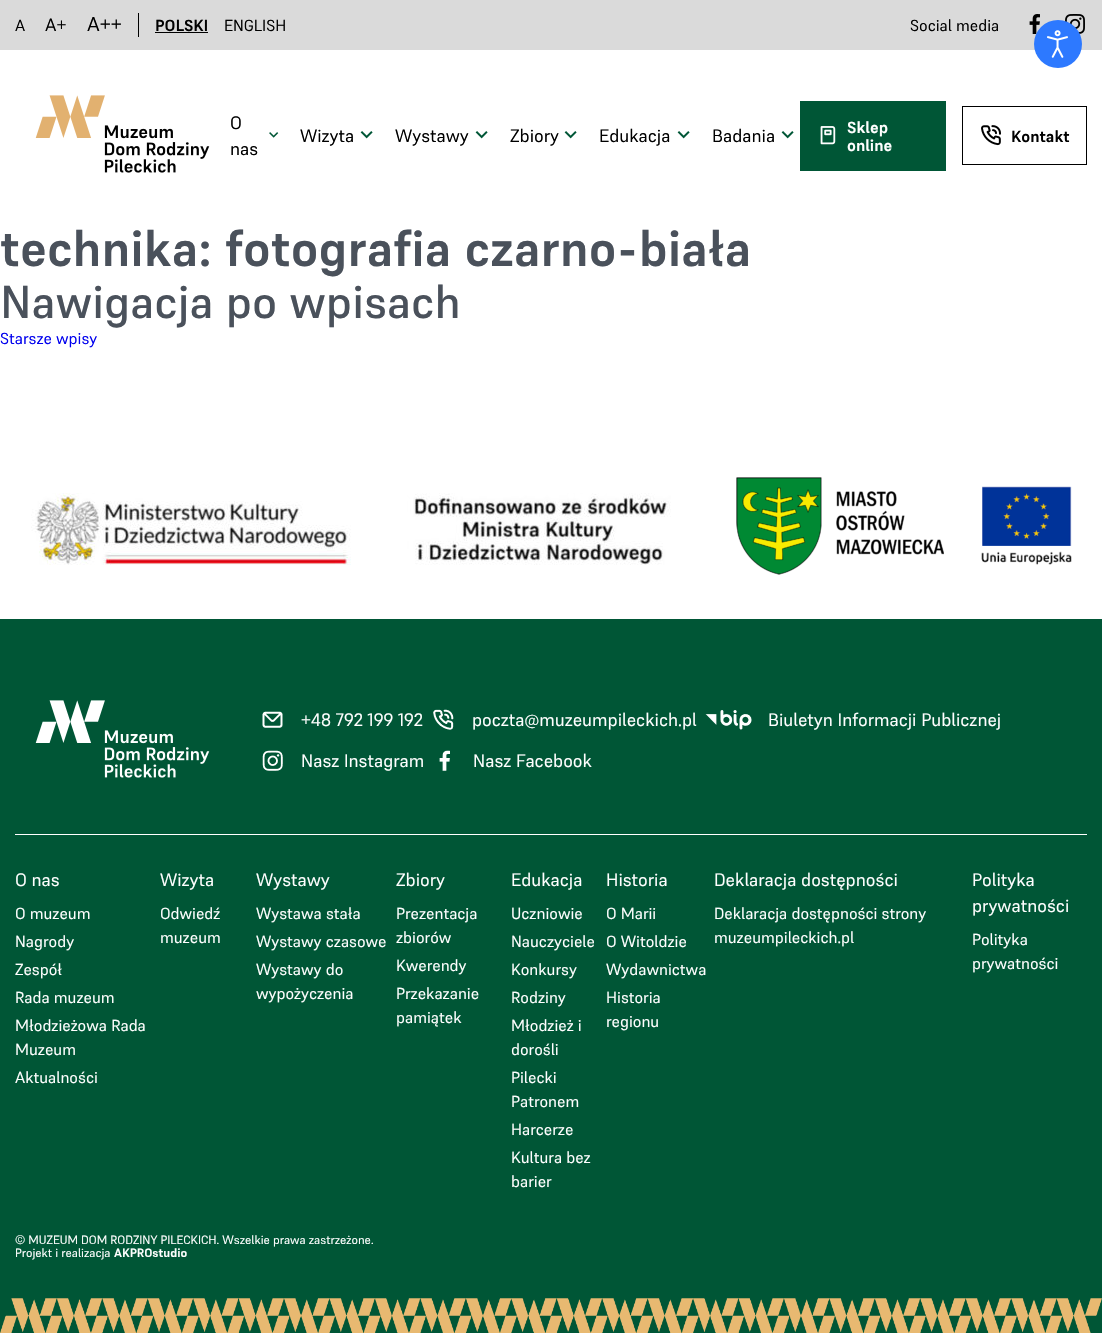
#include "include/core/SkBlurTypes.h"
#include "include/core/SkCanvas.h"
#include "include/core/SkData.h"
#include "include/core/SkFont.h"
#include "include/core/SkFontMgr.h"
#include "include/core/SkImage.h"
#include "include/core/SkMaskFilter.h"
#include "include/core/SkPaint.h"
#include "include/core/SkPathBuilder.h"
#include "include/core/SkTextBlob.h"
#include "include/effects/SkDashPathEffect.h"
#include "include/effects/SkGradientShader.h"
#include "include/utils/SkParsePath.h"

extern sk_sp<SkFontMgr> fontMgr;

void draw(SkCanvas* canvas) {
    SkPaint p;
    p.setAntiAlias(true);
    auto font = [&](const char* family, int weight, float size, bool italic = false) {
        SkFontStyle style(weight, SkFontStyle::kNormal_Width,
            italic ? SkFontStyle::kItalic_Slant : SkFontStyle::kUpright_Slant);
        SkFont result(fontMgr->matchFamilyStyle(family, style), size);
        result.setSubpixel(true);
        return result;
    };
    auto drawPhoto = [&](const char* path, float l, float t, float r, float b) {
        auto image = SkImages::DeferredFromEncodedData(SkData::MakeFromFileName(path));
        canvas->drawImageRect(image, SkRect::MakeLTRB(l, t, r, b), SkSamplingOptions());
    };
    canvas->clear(0xFFFFFFFF);
    p.setColor(0xFFDADADA);
    canvas->drawRect(SkRect::MakeLTRB(0, 0, 1102, 50), p);
    p.setColor(0xFF000000);
    canvas->drawRect(SkRect::MakeLTRB(138, 13, 139, 37), p);
    auto font1 = font("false", 400, 16);
    canvas->drawString("A", 15, 31, font1, p);
    auto font2 = font("false", 400, 18);
    canvas->drawString("A+", 45, 31, font2, p);
    auto font3 = font("false", 400, 20);
    canvas->drawString("A++", 87, 31, font3, p);
    auto font4 = font("false", 700, 16);
    canvas->drawString("POLSKI", 155, 31, font4, p);
    canvas->drawRect(SkRect::MakeLTRB(155, 32, 208, 33), p);
    canvas->drawString("ENGLISH", 224, 31, font1, p);
    canvas->drawString("Social media", 910, 31, font1, p);
    drawPhoto("media/1.png", 1029, 14, 1040, 34);
    drawPhoto("media/2.png", 1065, 14, 1085, 34);
    p.setColor(0xFF2D79FF);
    canvas->drawCircle(1058, 44, 24, p);
    drawPhoto("media/3.png", 1047, 30, 1068, 58);
    drawPhoto("media/4.png", 35, 95, 210, 173);
    p.setColor(0xFF000000);
    canvas->drawString("O", 230, 129, font2, p);
    drawPhoto("media/5.png", 269, 132, 279, 138);
    canvas->drawString("nas", 230, 155, font2, p);
    canvas->drawString("Wizyta", 300, 142, font2, p);
    drawPhoto("media/6.png", 360, 131, 373, 139);
    canvas->drawString("Wystawy", 395, 142, font2, p);
    drawPhoto("media/6.png", 475, 131, 488, 139);
    canvas->drawString("Zbiory", 510, 142, font2, p);
    drawPhoto("media/6.png", 564, 131, 577, 139);
    canvas->drawString("Edukacja", 599, 142, font2, p);
    drawPhoto("media/6.png", 677, 131, 690, 139);
    canvas->drawString("Badania", 712, 142, font2, p);
    drawPhoto("media/6.png", 781, 131, 794, 139);
    p.setColor(0xFF005636);
    canvas->drawRect(SkRect::MakeLTRB(800, 101, 946, 171), p);
    drawPhoto("media/7.png", 820, 126, 836, 145);
    p.setColor(0xFFFFFFFF);
    canvas->drawString("Sklep", 847, 133, font4, p);
    canvas->drawString("online", 847, 151, font4, p);
    p.setStyle(SkPaint::kStroke_Style);
    p.setStrokeWidth(1);
    p.setColor(0xFF000000);
    canvas->drawRect(SkRect::MakeLTRB(962.5f, 106.5f, 1086.5f, 164.5f), p);
    drawPhoto("media/8.png", 981, 125, 1001, 146);
    p.setStyle(SkPaint::kFill_Style);
    canvas->drawString("Kontakt", 1011, 142, font4, p);
    auto font5 = font("false", 700, 49.75f);
    p.setColor(0xFF4A515B);
    canvas->drawString("technika: fotografia czarno-biała", 0, 266, font5, p);
    auto font6 = font("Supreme", 500, 46);
    canvas->drawString("Nawigacja po wpisach", 0, 318, font6, p);
    p.setColor(0xFF0000EE);
    canvas->drawString("Starsze wpisy", 0, 344, font1, p);
    drawPhoto("media/9.png", 31, 493, 671, 565);
    drawPhoto("media/10.png", 736, 477, 944, 575);
    drawPhoto("media/11.png", 981, 486, 1072, 565);
    p.setColor(0xFF005636);
    canvas->drawRect(SkRect::MakeLTRB(0, 619, 1102, 1333), p);
    drawPhoto("media/12.png", 0, 1298, 1102, 1333);
    p.setColor(0xFFFFFFFF);
    canvas->drawRect(SkRect::MakeLTRB(15, 834, 1087, 835), p);
    drawPhoto("media/13.png", 35, 700, 210, 778);
    drawPhoto("media/14.png", 262, 711, 283, 728);
    canvas->drawString("+48 792 199 192", 301, 726, font2, p);
    drawPhoto("media/15.png", 433, 709, 454, 730);
    canvas->drawString("poczta@muzeumpileckich.pl", 472, 726, font2, p);
    drawPhoto("media/16.png", 705, 710, 752, 730);
    canvas->drawString("Biuletyn Informacji Publicznej", 768, 726, font2, p);
    drawPhoto("media/17.png", 262, 750, 283, 771);
    canvas->drawString("Nasz Instagram", 301, 767, font2, p);
    drawPhoto("media/18.png", 439, 750, 450, 771);
    canvas->drawString("Nasz Facebook", 473, 767, font2, p);
    canvas->drawString("O nas", 15, 886, font2, p);
    {
        const struct { const char* s; float x, y; } items[] = {
            {"O muzeum", 15, 919},
            {"Nagrody", 15, 947},
            {"Zespół", 15, 975},
            {"Rada muzeum", 15, 1003},
            {"Młodzieżowa Rada", 15, 1031},
            {"Muzeum", 15, 1055},
            {"Aktualności", 15, 1083},
        };
        for (auto [s, x, y] : items) {
            canvas->drawString(s, x, y, font1, p);
        }
    }
    canvas->drawString("Wizyta", 160, 886, font2, p);
    canvas->drawString("Odwiedź", 160, 919, font1, p);
    canvas->drawString("muzeum", 160, 943, font1, p);
    canvas->drawString("Wystawy", 256, 886, font2, p);
    {
        const struct { const char* s; float x, y; } items[] = {
            {"Wystawa stała", 256, 919},
            {"Wystawy czasowe", 256, 947},
            {"Wystawy do", 256, 975},
            {"wypożyczenia", 256, 999},
        };
        for (auto [s, x, y] : items) {
            canvas->drawString(s, x, y, font1, p);
        }
    }
    canvas->drawString("Zbiory", 396, 886, font2, p);
    {
        const struct { const char* s; float x, y; } items[] = {
            {"Prezentacja", 396, 919},
            {"zbiorów", 396, 943},
            {"Kwerendy", 396, 971},
            {"Przekazanie", 396, 999},
            {"pamiątek", 396, 1023},
        };
        for (auto [s, x, y] : items) {
            canvas->drawString(s, x, y, font1, p);
        }
    }
    canvas->drawString("Edukacja", 511, 886, font2, p);
    {
        const struct { const char* s; float x, y; } items[] = {
            {"Uczniowie", 511, 919},
            {"Nauczyciele", 511, 947},
            {"Konkursy", 511, 975},
            {"Rodziny", 511, 1003},
            {"Młodzież i", 511, 1031},
            {"dorośli", 511, 1055},
            {"Pilecki", 511, 1083},
            {"Patronem", 511, 1107},
            {"Harcerze", 511, 1135},
            {"Kultura bez", 511, 1163},
            {"barier", 511, 1187},
        };
        for (auto [s, x, y] : items) {
            canvas->drawString(s, x, y, font1, p);
        }
    }
    canvas->drawString("Historia", 606, 886, font2, p);
    {
        const struct { const char* s; float x, y; } items[] = {
            {"O Marii", 606, 919},
            {"O Witoldzie", 606, 947},
            {"Wydawnictwa", 606, 975},
            {"Historia", 606, 1003},
            {"regionu", 606, 1027},
        };
        for (auto [s, x, y] : items) {
            canvas->drawString(s, x, y, font1, p);
        }
    }
    canvas->drawString("Deklaracja dostępności", 714, 886, font2, p);
    canvas->drawString("Deklaracja dostępności strony", 714, 919, font1, p);
    canvas->drawString("muzeumpileckich.pl", 714, 943, font1, p);
    canvas->drawString("Polityka", 972, 886, font2, p);
    canvas->drawString("prywatności", 972, 912, font2, p);
    canvas->drawString("Polityka", 972, 945, font1, p);
    canvas->drawString("prywatności", 972, 969, font1, p);
    auto font7 = font("false", 400, 12);
    canvas->drawString("© MUZEUM DOM RODZINY PILECKICH. Wszelkie prawa zastrzeżone.", 15, 1244, font7, p);
    canvas->drawString("Projekt i realizacja", 15, 1257, font7, p);
    auto font8 = font("false", 700, 12);
    canvas->drawString("AKPROstudio", 114, 1257, font8, p);
}
